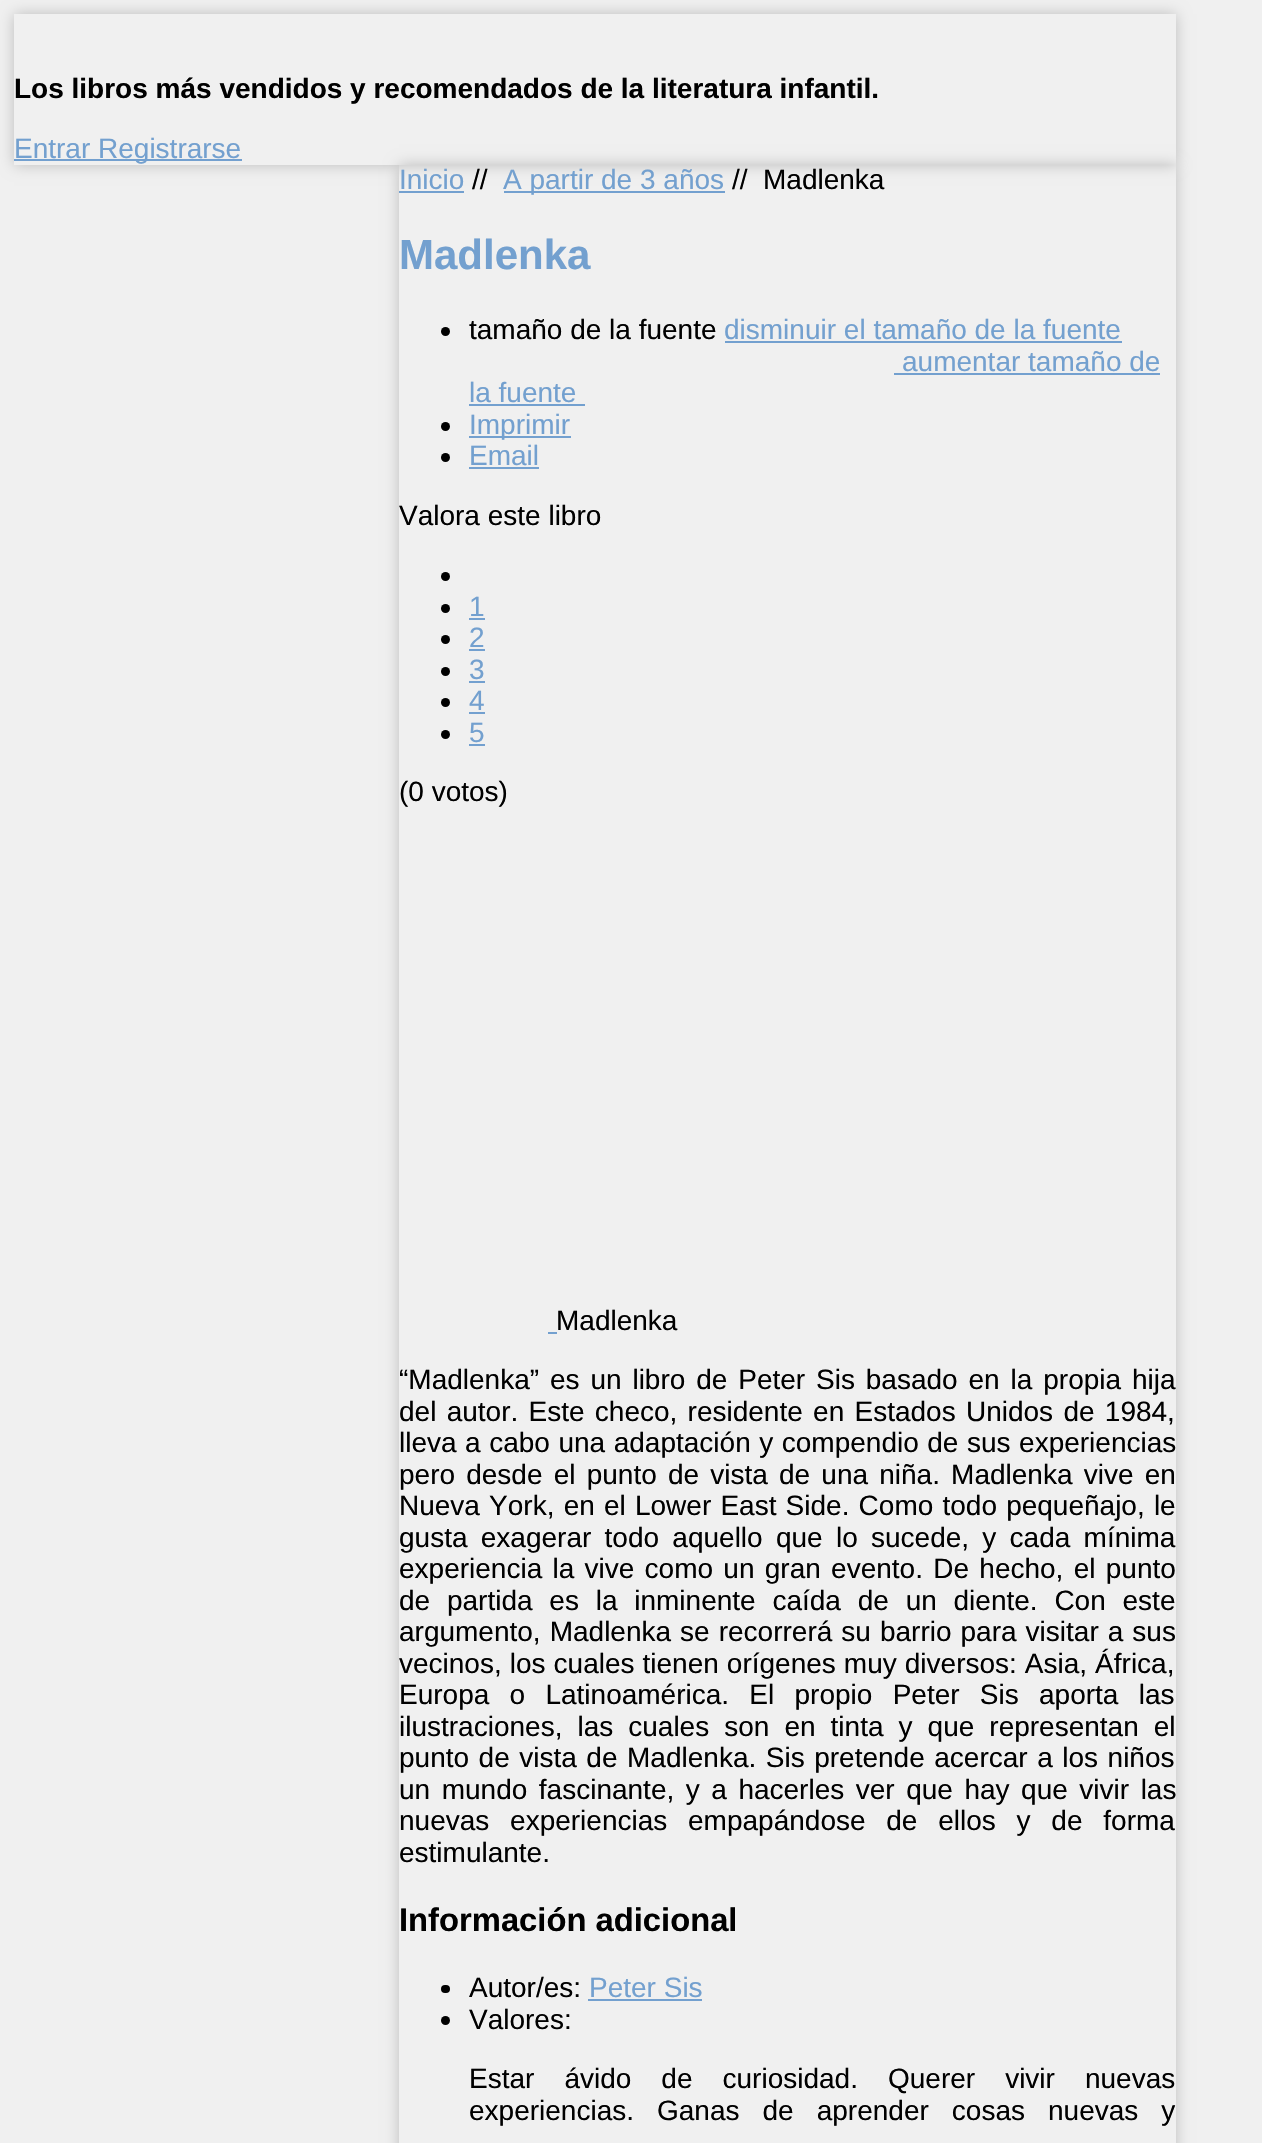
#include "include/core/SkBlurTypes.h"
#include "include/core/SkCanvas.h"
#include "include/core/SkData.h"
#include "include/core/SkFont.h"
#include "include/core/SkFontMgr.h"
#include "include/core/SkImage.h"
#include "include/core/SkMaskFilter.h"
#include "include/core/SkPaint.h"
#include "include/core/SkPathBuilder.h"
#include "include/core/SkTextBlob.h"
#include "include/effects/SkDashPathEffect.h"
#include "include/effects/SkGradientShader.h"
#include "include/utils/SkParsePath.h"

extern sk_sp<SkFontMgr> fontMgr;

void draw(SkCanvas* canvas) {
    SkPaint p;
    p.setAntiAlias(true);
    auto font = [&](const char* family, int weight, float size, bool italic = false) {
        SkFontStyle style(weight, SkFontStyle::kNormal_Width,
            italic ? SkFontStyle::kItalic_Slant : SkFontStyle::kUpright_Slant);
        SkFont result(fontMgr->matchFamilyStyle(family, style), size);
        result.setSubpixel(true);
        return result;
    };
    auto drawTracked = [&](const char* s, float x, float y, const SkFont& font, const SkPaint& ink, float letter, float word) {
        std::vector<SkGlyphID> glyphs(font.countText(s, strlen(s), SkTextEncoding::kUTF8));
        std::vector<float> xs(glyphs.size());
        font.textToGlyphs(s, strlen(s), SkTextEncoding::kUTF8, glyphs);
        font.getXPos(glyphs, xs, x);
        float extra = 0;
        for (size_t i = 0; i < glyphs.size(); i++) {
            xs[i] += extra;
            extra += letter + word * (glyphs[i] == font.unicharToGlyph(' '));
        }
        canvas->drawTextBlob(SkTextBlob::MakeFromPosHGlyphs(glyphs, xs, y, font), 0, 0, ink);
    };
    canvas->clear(0xFFF0F0F0);
    canvas->save();
    canvas->clipPath(SkPathBuilder(SkPathFillType::kEvenOdd).moveTo(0, 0).lineTo(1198, 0).lineTo(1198, 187).lineTo(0, 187).close().moveTo(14, 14).lineTo(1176, 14).lineTo(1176, 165).lineTo(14, 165).close().detach(), true);
    p.setColor(0xFFBDBDBD);
    p.setMaskFilter(SkMaskFilter::MakeBlur(kNormal_SkBlurStyle, 7));
    canvas->drawRect(SkRect::MakeLTRB(14, 14, 1176, 165), p);
    p.setMaskFilter(nullptr);
    canvas->restore();
    auto font1 = font("Liberation Sans", 700, 28);
    p.setColor(0xFF000000);
    canvas->drawString("Los libros más vendidos y recomendados de la literatura infantil.", 14, 98, font1, p);
    p.setColor(0xFF73A0CF);
    canvas->drawRect(SkRect::MakeLTRB(14, 159, 242, 161), p);
    auto font2 = font("Liberation Sans", 400, 28);
    canvas->drawString("Entrar Registrarse", 14, 158, font2, p);
    canvas->save();
    canvas->clipPath(SkPathBuilder(SkPathFillType::kEvenOdd).moveTo(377, 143).lineTo(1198, 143).lineTo(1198, 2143).lineTo(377, 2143).close().moveTo(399, 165).lineTo(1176, 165).lineTo(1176, 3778).lineTo(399, 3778).close().detach(), true);
    p.setColor(0xFFBDBDBD);
    p.setMaskFilter(SkMaskFilter::MakeBlur(kNormal_SkBlurStyle, 7));
    canvas->drawRect(SkRect::MakeLTRB(399, 165, 1176, 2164), p);
    p.setMaskFilter(nullptr);
    canvas->restore();
    p.setColor(0xFF73A0CF);
    canvas->drawString("Inicio", 399, 189, font2, p);
    canvas->drawRect(SkRect::MakeLTRB(399, 191, 464, 193), p);
    p.setColor(0xFF000000);
    canvas->drawString("//", 472, 189, font2, p);
    p.setColor(0xFF73A0CF);
    canvas->drawRect(SkRect::MakeLTRB(504, 191, 725, 193), p);
    canvas->drawString("A partir de 3 años", 503, 189, font2, p);
    p.setColor(0xFF000000);
    canvas->drawString("//", 732, 189, font2, p);
    canvas->drawString("Madlenka", 763, 189, font2, p);
    auto font3 = font("Liberation Sans", 700, 42);
    p.setColor(0xFF73A0CF);
    canvas->drawString("Madlenka", 399, 269, font3, p);
    p.setColor(0xFF000000);
    canvas->drawCircle(445.5f, 331.5f, 4.5f, p);
    canvas->drawString("tamaño de la fuente", 469, 339, font2, p);
    p.setColor(0xFF73A0CF);
    canvas->drawString("disminuir el tamaño de la fuente", 724, 339, font2, p);
    canvas->drawRect(SkRect::MakeLTRB(725, 341, 1122, 343), p);
    canvas->drawRect(SkRect::MakeLTRB(894, 373, 1160, 375), p);
    canvas->drawString("aumentar tamaño de", 902, 371, font2, p);
    canvas->drawString("la fuente", 469, 402, font2, p);
    canvas->drawRect(SkRect::MakeLTRB(469, 404, 585, 406), p);
    p.setColor(0xFF000000);
    canvas->drawCircle(445.5f, 426.5f, 4.5f, p);
    p.setColor(0xFF73A0CF);
    canvas->drawRect(SkRect::MakeLTRB(469, 436, 571, 438), p);
    canvas->drawString("Imprimir", 469, 434, font2, p);
    p.setColor(0xFF000000);
    canvas->drawCircle(445.5f, 457.5f, 4.5f, p);
    p.setColor(0xFF73A0CF);
    canvas->drawString("Email", 469, 465, font2, p);
    canvas->drawRect(SkRect::MakeLTRB(469, 467, 539, 469), p);
    p.setColor(0xFF000000);
    canvas->drawString("Valora este libro", 399, 525, font2, p);
    canvas->drawCircle(445.5f, 576.5f, 4.5f, p);
    canvas->drawCircle(445.5f, 608.5f, 4.5f, p);
    p.setColor(0xFF73A0CF);
    canvas->drawString("1", 469, 616, font2, p);
    canvas->drawRect(SkRect::MakeLTRB(469, 618, 485, 620), p);
    p.setColor(0xFF000000);
    canvas->drawCircle(445.5f, 639.5f, 4.5f, p);
    p.setColor(0xFF73A0CF);
    canvas->drawString("2", 469, 647, font2, p);
    canvas->drawRect(SkRect::MakeLTRB(469, 649, 485, 651), p);
    p.setColor(0xFF000000);
    canvas->drawCircle(445.5f, 671.5f, 4.5f, p);
    p.setColor(0xFF73A0CF);
    canvas->drawString("3", 469, 679, font2, p);
    canvas->drawRect(SkRect::MakeLTRB(469, 681, 485, 683), p);
    p.setColor(0xFF000000);
    canvas->drawCircle(445.5f, 702.5f, 4.5f, p);
    p.setColor(0xFF73A0CF);
    canvas->drawString("4", 469, 710, font2, p);
    canvas->drawRect(SkRect::MakeLTRB(469, 712, 485, 714), p);
    p.setColor(0xFF000000);
    canvas->drawCircle(445.5f, 734.5f, 4.5f, p);
    p.setColor(0xFF73A0CF);
    canvas->drawString("5", 469, 742, font2, p);
    canvas->drawRect(SkRect::MakeLTRB(469, 744, 485, 746), p);
    p.setColor(0xFF000000);
    canvas->drawString("(0 votos)", 399, 801, font2, p);
    canvas->drawString("Madlenka", 556, 1330, font2, p);
    p.setColor(0xFF73A0CF);
    canvas->drawRect(SkRect::MakeLTRB(548, 1332, 557, 1334), p);
    p.setColor(0xFF000000);
    drawTracked("“Madlenka” es un libro de Peter Sis basado en la propia hija", 399, 1389, font2, p, 0, 3.1f);
    drawTracked("del autor. Este checo, residente en Estados Unidos de 1984,", 399, 1421, font2, p, 0, 2.5f);
    drawTracked("lleva a cabo una adaptación y compendio de sus experiencias", 399, 1452, font2, p, 0, 0.75f);
    drawTracked("pero desde el punto de vista de una niña. Madlenka vive en", 399, 1484, font2, p, 0, 3.4f);
    drawTracked("Nueva York, en el Lower East Side. Como todo pequeñajo, le", 399, 1515, font2, p, 0, 1.4f);
    drawTracked("gusta exagerar todo aquello que lo sucede, y cada mínima", 399, 1547, font2, p, 0, 5.5f);
    drawTracked("experiencia la vive como un gran evento. De hecho, el punto", 399, 1578, font2, p, 0, 2.5f);
    drawTracked("de partida es la inminente caída de un diente. Con este", 399, 1610, font2, p, 0, 9);
    drawTracked("argumento, Madlenka se recorrerá su barrio para visitar a sus", 399, 1641, font2, p, 0, 1.25f);
    drawTracked("vecinos, los cuales tienen orígenes muy diversos: Asia, África,", 399, 1673, font2, p, 0, 0.25f);
    drawTracked("Europa o Latinoamérica. El propio Peter Sis aporta las", 399, 1704, font2, p, 0, 12.5f);
    drawTracked("ilustraciones, las cuales son en tinta y que representan el", 399, 1736, font2, p, 0, 7.25f);
    drawTracked("punto de vista de Madlenka. Sis pretende acercar a los niños", 399, 1767, font2, p, 0, 1.75f);
    drawTracked("un mundo fascinante, y a hacerles ver que hay que vivir las", 399, 1799, font2, p, 0, 3.75f);
    drawTracked("nuevas experiencias empapándose de ellos y de forma", 399, 1830, font2, p, 0, 13);
    canvas->drawString("estimulante.", 399, 1862, font2, p);
    auto font4 = font("Liberation Sans", 700, 32.75f);
    canvas->drawString("Información adicional", 399, 1931, font4, p);
    canvas->drawRoundRect(SkRect::MakeLTRB(441, 1985, 450, 1993), 4, 4, p);
    canvas->drawString("Autor/es:", 469, 1997, font2, p);
    p.setColor(0xFF73A0CF);
    canvas->drawString("Peter Sis", 589, 1997, font2, p);
    canvas->drawRect(SkRect::MakeLTRB(588, 1999, 702, 2001), p);
    p.setColor(0xFF000000);
    canvas->drawCircle(445.5f, 2020.5f, 4.5f, p);
    canvas->drawString("Valores:", 469, 2029, font2, p);
    drawTracked("Estar ávido de curiosidad. Querer vivir nuevas", 469, 2088, font2, p, 0, 22.25f);
    drawTracked("experiencias. Ganas de aprender cosas nuevas y", 469, 2120, font2, p, 0, 15.25f);
}
